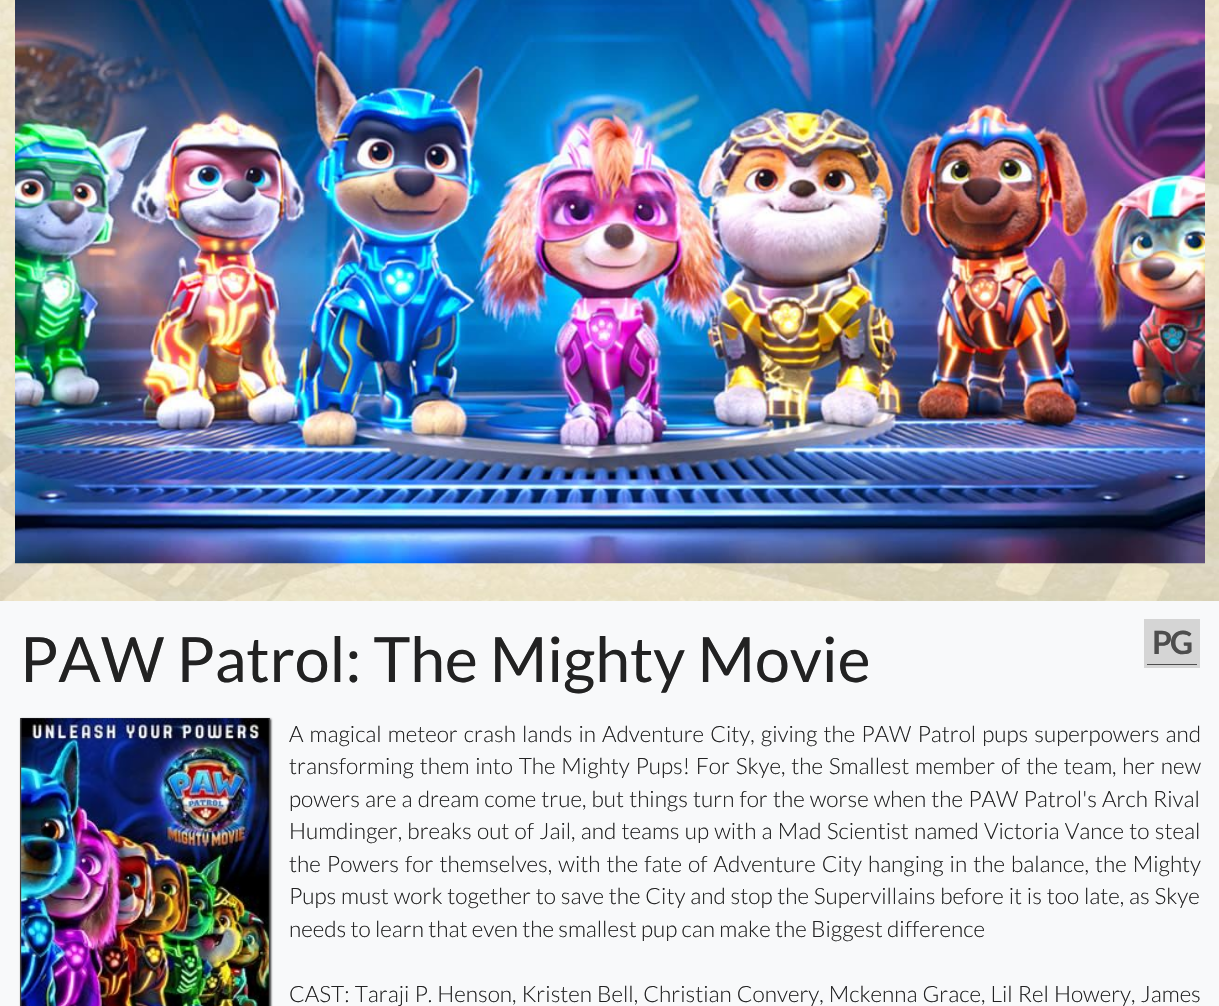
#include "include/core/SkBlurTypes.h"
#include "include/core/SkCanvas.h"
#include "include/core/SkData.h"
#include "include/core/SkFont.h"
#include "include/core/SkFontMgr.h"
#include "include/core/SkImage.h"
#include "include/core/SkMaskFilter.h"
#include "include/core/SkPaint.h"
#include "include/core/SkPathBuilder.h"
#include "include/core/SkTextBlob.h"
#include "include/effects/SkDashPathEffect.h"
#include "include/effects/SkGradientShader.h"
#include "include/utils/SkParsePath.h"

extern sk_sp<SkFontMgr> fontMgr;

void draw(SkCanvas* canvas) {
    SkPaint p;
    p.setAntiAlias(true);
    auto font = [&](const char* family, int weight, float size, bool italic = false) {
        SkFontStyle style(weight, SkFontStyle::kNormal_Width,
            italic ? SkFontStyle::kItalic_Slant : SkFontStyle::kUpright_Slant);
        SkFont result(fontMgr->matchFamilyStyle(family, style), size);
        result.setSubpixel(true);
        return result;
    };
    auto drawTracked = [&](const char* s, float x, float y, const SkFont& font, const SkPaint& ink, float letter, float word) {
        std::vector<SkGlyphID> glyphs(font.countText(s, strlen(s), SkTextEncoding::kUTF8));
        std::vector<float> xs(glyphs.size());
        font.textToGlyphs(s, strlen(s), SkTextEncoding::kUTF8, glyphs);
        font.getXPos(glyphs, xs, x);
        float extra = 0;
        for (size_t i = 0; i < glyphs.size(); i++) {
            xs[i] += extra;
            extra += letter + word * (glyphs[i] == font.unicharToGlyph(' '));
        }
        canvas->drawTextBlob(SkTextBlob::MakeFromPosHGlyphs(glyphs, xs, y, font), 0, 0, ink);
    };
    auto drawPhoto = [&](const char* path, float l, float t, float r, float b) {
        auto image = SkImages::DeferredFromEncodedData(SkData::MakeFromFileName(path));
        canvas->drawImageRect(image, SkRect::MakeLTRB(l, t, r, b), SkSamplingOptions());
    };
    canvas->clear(0xFFFFFFFF);
    drawPhoto("media/1.png", 0, 0, 1219, 601);
    drawPhoto("media/2.png", 15, 0, 1205, 564);
    p.setColor(0xFFF8F9FA);
    canvas->drawRect(SkRect::MakeLTRB(0, 601, 1219, 1006), p);
    auto font1 = font("Lato", 400, 62.5f);
    p.setColor(0xFF222222);
    canvas->drawString("PAW Patrol: The Mighty Movie", 20, 682, font1, p);
    p.setColor(0xFFD5D5D5);
    canvas->drawRect(SkRect::MakeLTRB(1146.5f, 621.5f, 1197.5f, 664.5f), p);
    p.setStyle(SkPaint::kStroke_Style);
    p.setStrokeWidth(1);
    p.setColor(0xFF4D4D4D);
    canvas->drawRect(SkRect::MakeLTRB(1146.5f, 621.5f, 1197.5f, 664.5f), p);
    p.setStrokeWidth(3);
    p.setColor(0xFFD5D5D5);
    canvas->drawRect(SkRect::MakeLTRB(1145.5f, 620.5f, 1198.5f, 666.5f), p);
    auto font2 = font("Lato", 700, 32);
    p.setStyle(SkPaint::kFill_Style);
    p.setColor(0xFF4D4D4D);
    drawTracked("PG", 1152, 654, font2, p, -2, 0);
    p.setColor(0xCC000000);
    p.setMaskFilter(SkMaskFilter::MakeBlur(kNormal_SkBlurStyle, 1));
    canvas->drawRect(SkRect::MakeLTRB(21, 719, 271, 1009), p);
    p.setMaskFilter(nullptr);
    p.setStyle(SkPaint::kStroke_Style);
    p.setStrokeWidth(1);
    p.setColor(0xFF444444);
    canvas->drawRect(SkRect::MakeLTRB(20.5f, 718.5f, 269.5f, 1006.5f), p);
    drawPhoto("media/3.png", 21, 718, 269, 1006);
    auto font3 = font("Lato", 300, 22.5f);
    p.setStyle(SkPaint::kFill_Style);
    p.setColor(0xFF222222);
    drawTracked("A magical meteor crash lands in Adventure City, giving the PAW Patrol pups superpowers and", 289, 742, font3, p, 0, 1.75f);
    drawTracked("transforming them into The Mighty Pups! For Skye, the Smallest member of the team, her new", 289, 774, font3, p, 0, 1.5f);
    drawTracked("powers are a dream come true, but things turn for the worse when the PAW Patrol's Arch Rival", 289, 807, font3, p, 0, 0.8f);
    drawTracked("Humdinger, breaks out of Jail, and teams up with a Mad Scientist named Victoria Vance to steal", 289, 839, font3, p, 0, 0.9f);
    drawTracked("the Powers for themselves, with the fate of Adventure City hanging in the balance, the Mighty", 289, 872, font3, p, 0, 1.75f);
    drawTracked("Pups must work together to save the City and stop the Supervillains before it is too late, as Skye", 289, 904, font3, p, 0, 0.5f);
    canvas->drawString("needs to learn that even the smallest pup can make the Biggest difference", 289, 937, font3, p);
    drawTracked("CAST: Taraji P. Henson, Kristen Bell, Christian Convery, Mckenna Grace, Lil Rel Howery, James", 289, 1002, font3, p, 0, 0.75f);
}
